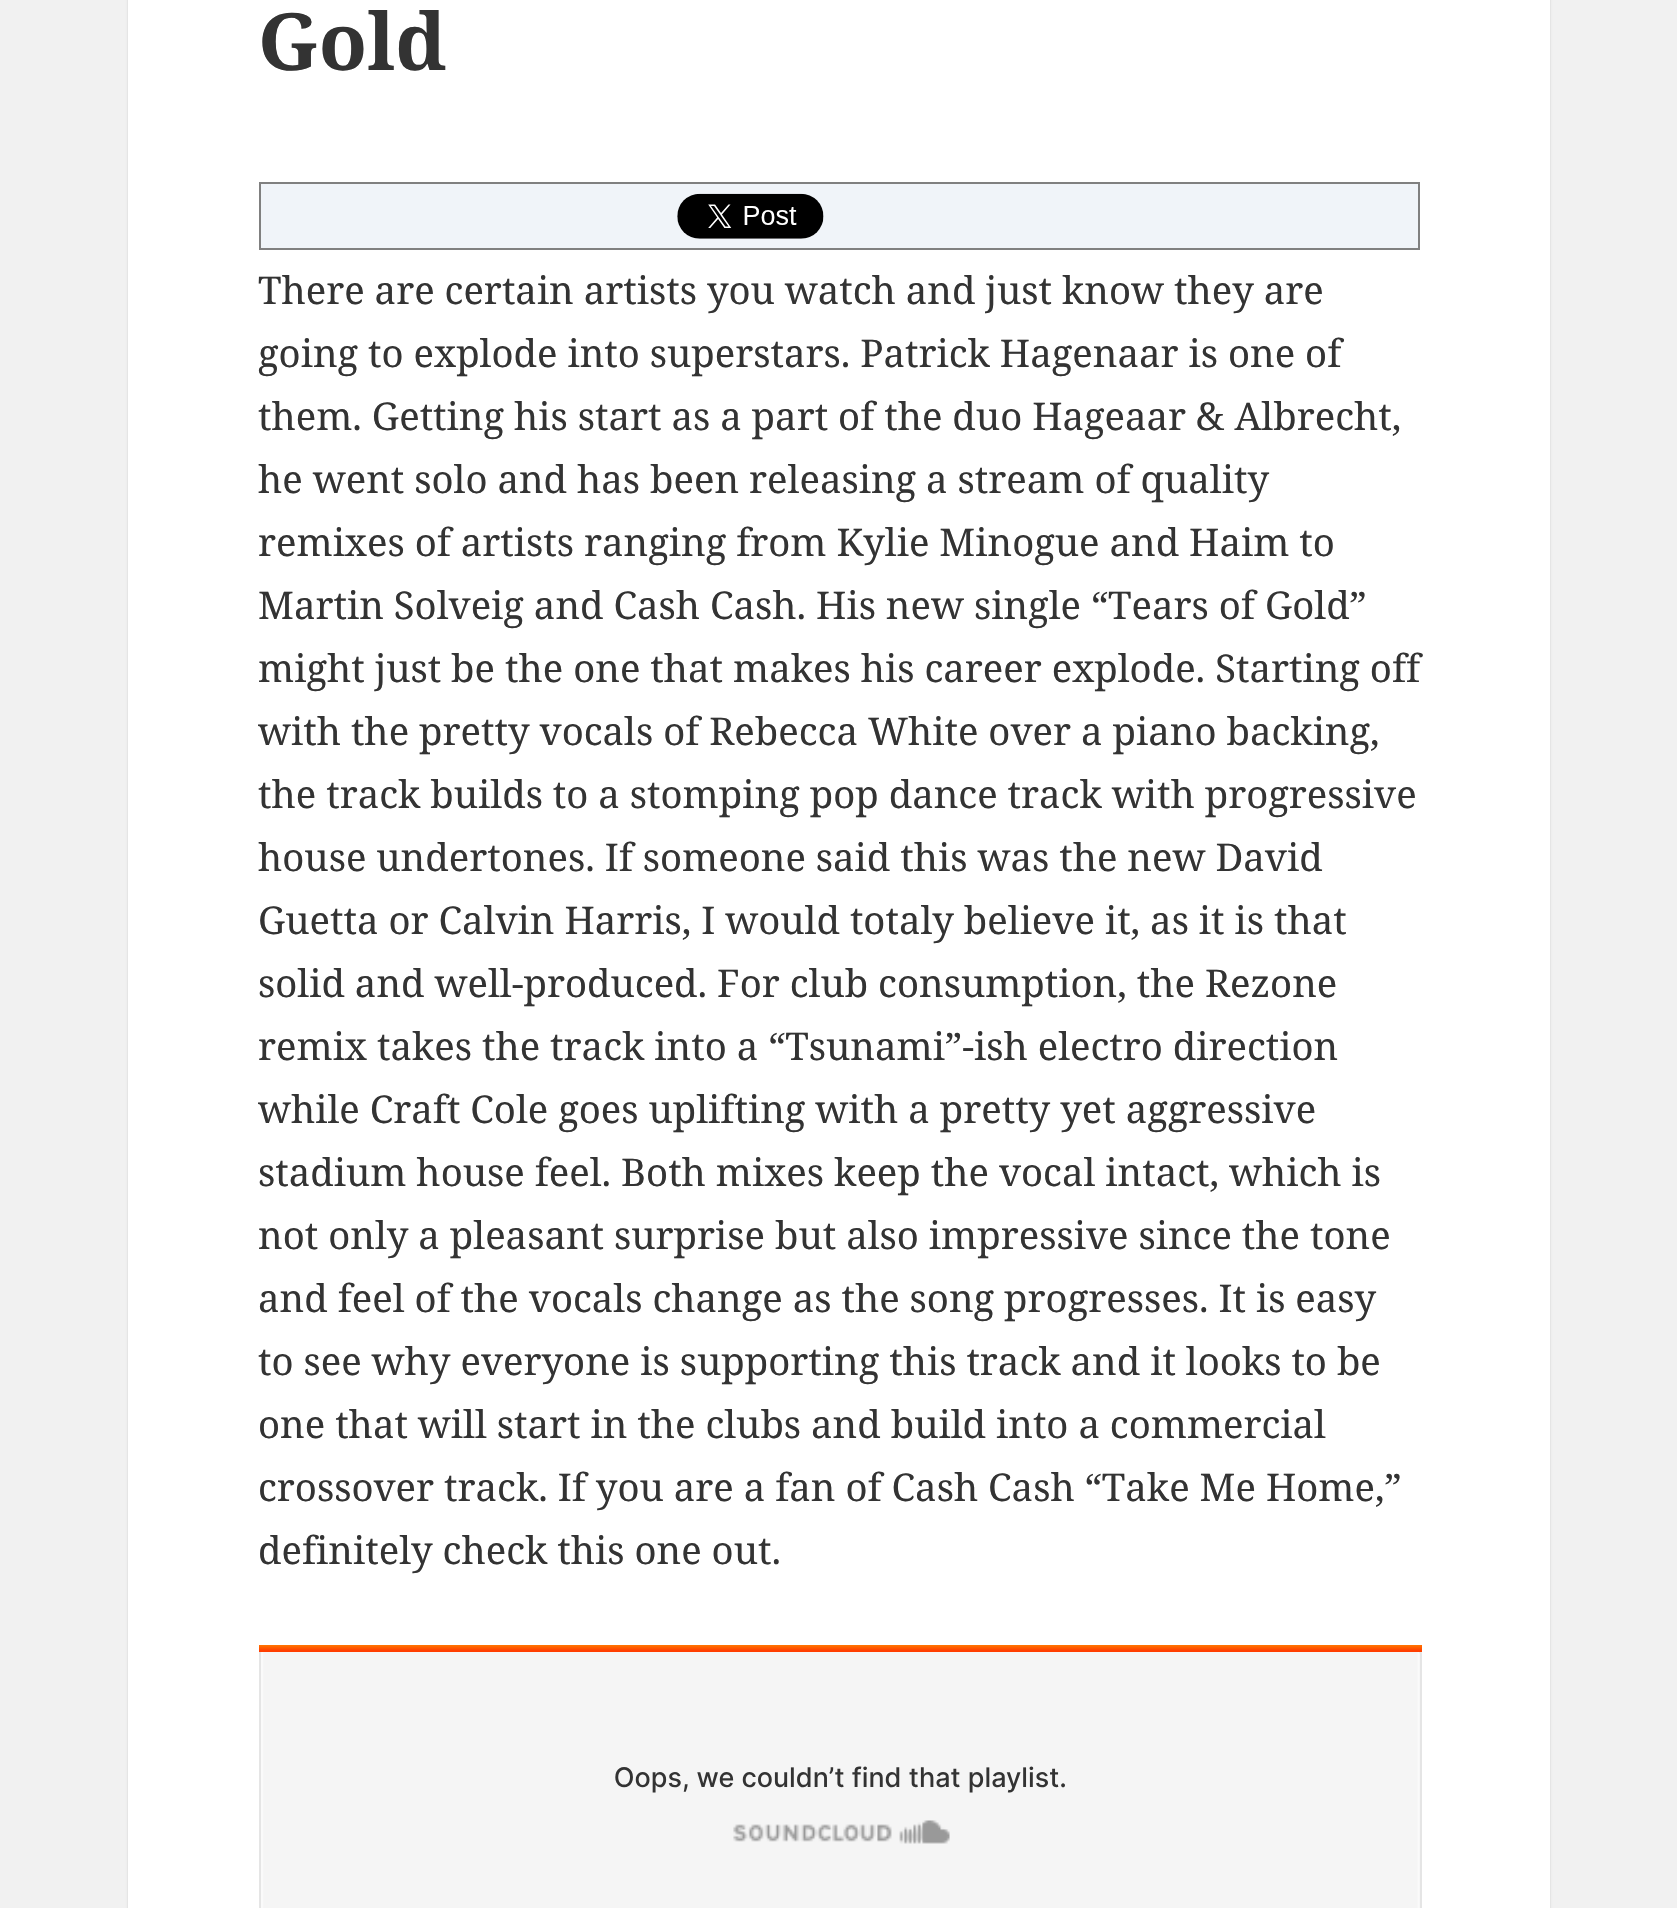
#include "include/core/SkBlurTypes.h"
#include "include/core/SkCanvas.h"
#include "include/core/SkData.h"
#include "include/core/SkFont.h"
#include "include/core/SkFontMgr.h"
#include "include/core/SkImage.h"
#include "include/core/SkMaskFilter.h"
#include "include/core/SkPaint.h"
#include "include/core/SkPathBuilder.h"
#include "include/core/SkTextBlob.h"
#include "include/effects/SkDashPathEffect.h"
#include "include/effects/SkGradientShader.h"
#include "include/utils/SkParsePath.h"

extern sk_sp<SkFontMgr> fontMgr;

void draw(SkCanvas* canvas) {
    SkPaint p;
    p.setAntiAlias(true);
    auto font = [&](const char* family, int weight, float size, bool italic = false) {
        SkFontStyle style(weight, SkFontStyle::kNormal_Width,
            italic ? SkFontStyle::kItalic_Slant : SkFontStyle::kUpright_Slant);
        SkFont result(fontMgr->matchFamilyStyle(family, style), size);
        result.setSubpixel(true);
        return result;
    };
    auto drawPhoto = [&](const char* path, float l, float t, float r, float b) {
        auto image = SkImages::DeferredFromEncodedData(SkData::MakeFromFileName(path));
        canvas->drawImageRect(image, SkRect::MakeLTRB(l, t, r, b), SkSamplingOptions());
    };
    canvas->clear(0xFFF1F1F1);
    p.setColor(0x26000000);
    p.setMaskFilter(SkMaskFilter::MakeBlur(kNormal_SkBlurStyle, 1));
    canvas->drawRect(SkRect::MakeLTRB(128, -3, 1550, 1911), p);
    p.setMaskFilter(nullptr);
    p.setColor(0xFFFFFFFF);
    canvas->drawRect(SkRect::MakeLTRB(128, 0, 1550, 1908), p);
    auto font1 = font("Noto Serif", 700, 79);
    p.setColor(0xFF333333);
    canvas->drawString("Gold", 258, 70, font1, p);
    p.setColor(0xFFF0F4F9);
    canvas->drawRect(SkRect::MakeLTRB(260, 183, 1419, 249), p);
    p.setStyle(SkPaint::kStroke_Style);
    p.setStrokeWidth(2);
    p.setColor(0xFF808080);
    canvas->drawRect(SkRect::MakeLTRB(260, 183, 1419, 249), p);
    drawPhoto("media/1.png", 677, 193, 824, 239);
    auto font2 = font("Noto Serif", 400, 38.25f);
    p.setStyle(SkPaint::kFill_Style);
    p.setColor(0xFF333333);
    {
        const struct { const char* s; float x, y; } items[] = {
            {"There are certain artists you watch and just know they are", 258, 304},
            {"going to explode into superstars. Patrick Hagenaar is one of", 258, 367},
            {"them. Getting his start as a part of the duo Hageaar & Albrecht,", 258, 430},
            {"he went solo and has been releasing a stream of quality", 258, 493},
            {"remixes of artists ranging from Kylie Minogue and Haim to", 258, 556},
            {"Martin Solveig and Cash Cash. His new single “Tears of Gold”", 258, 619},
            {"might just be the one that makes his career explode. Starting off", 258, 682},
            {"with the pretty vocals of Rebecca White over a piano backing,", 258, 745},
            {"the track builds to a stomping pop dance track with progressive", 258, 808},
            {"house undertones. If someone said this was the new David", 258, 871},
            {"Guetta or Calvin Harris, I would totaly believe it, as it is that", 258, 934},
            {"solid and well-produced. For club consumption, the Rezone", 258, 997},
            {"remix takes the track into a “Tsunami”-ish electro direction", 258, 1060},
            {"while Craft Cole goes uplifting with a pretty yet aggressive", 258, 1123},
            {"stadium house feel. Both mixes keep the vocal intact, which is", 258, 1186},
            {"not only a pleasant surprise but also impressive since the tone", 258, 1249},
            {"and feel of the vocals change as the song progresses. It is easy", 258, 1312},
            {"to see why everyone is supporting this track and it looks to be", 258, 1375},
            {"one that will start in the clubs and build into a commercial", 258, 1438},
            {"crossover track. If you are a fan of Cash Cash “Take Me Home,”", 258, 1501},
            {"definitely check this one out.", 258, 1564},
        };
        for (auto [s, x, y] : items) {
            canvas->drawString(s, x, y, font2, p);
        }
    }
    drawPhoto("media/2.png", 259, 1645, 1422, 1908);
}
